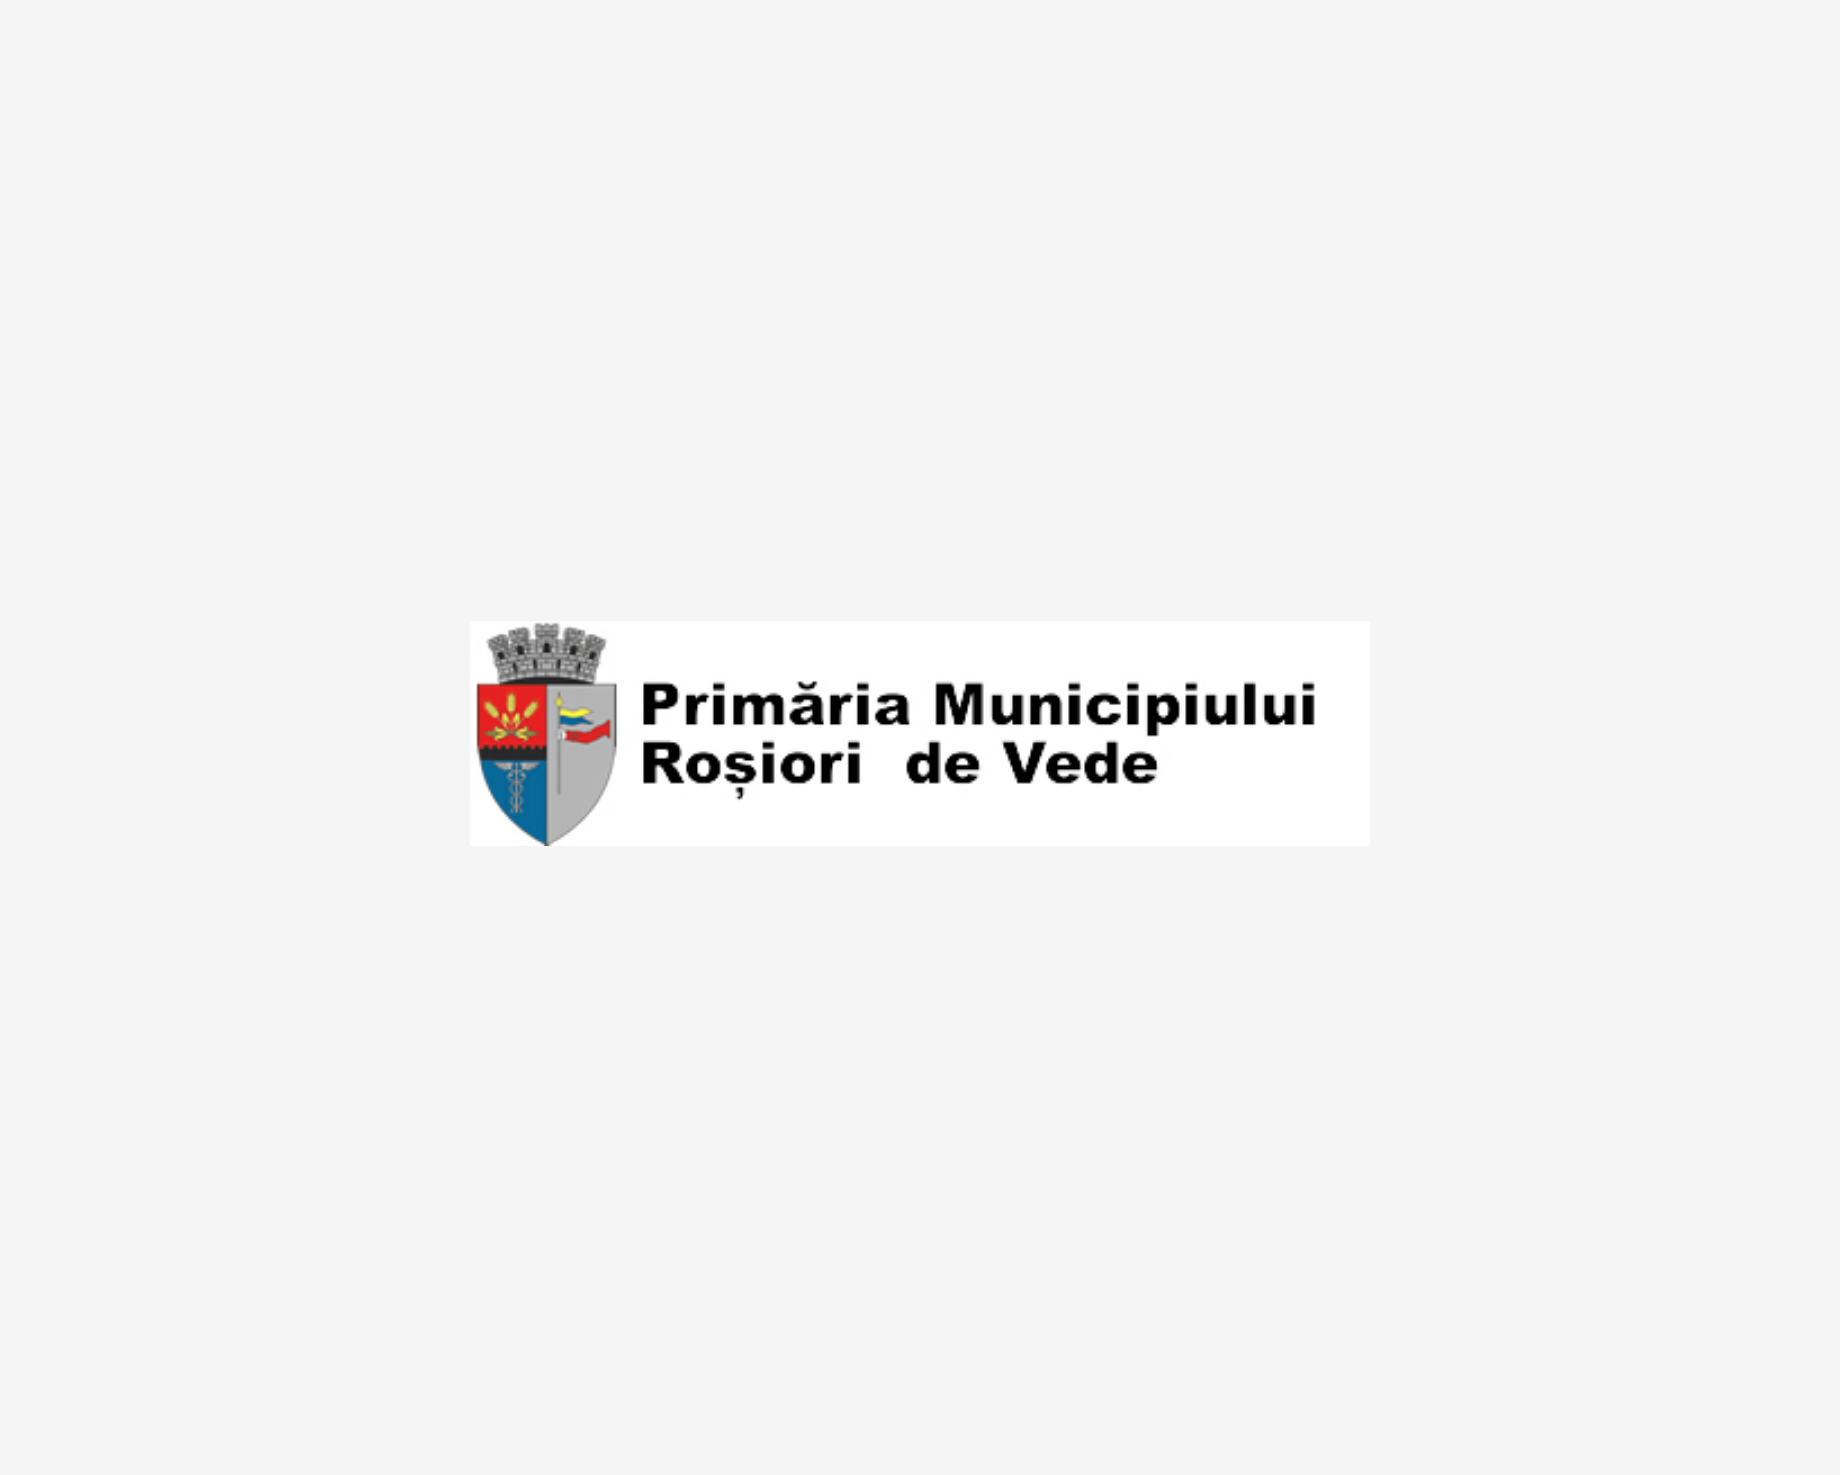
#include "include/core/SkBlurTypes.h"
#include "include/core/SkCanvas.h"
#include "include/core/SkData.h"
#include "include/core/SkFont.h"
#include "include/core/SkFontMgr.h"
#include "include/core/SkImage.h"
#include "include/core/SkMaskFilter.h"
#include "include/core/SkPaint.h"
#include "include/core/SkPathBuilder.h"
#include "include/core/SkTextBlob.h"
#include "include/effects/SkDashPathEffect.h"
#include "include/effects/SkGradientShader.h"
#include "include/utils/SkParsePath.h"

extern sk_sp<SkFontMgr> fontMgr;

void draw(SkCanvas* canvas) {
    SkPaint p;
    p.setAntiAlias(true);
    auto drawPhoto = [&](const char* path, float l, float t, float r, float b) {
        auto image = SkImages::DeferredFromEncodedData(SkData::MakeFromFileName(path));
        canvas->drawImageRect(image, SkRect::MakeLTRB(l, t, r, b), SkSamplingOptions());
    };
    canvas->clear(0xFFF5F5F5);
    drawPhoto("media/1.png", 470, 621, 1370, 846);
}
